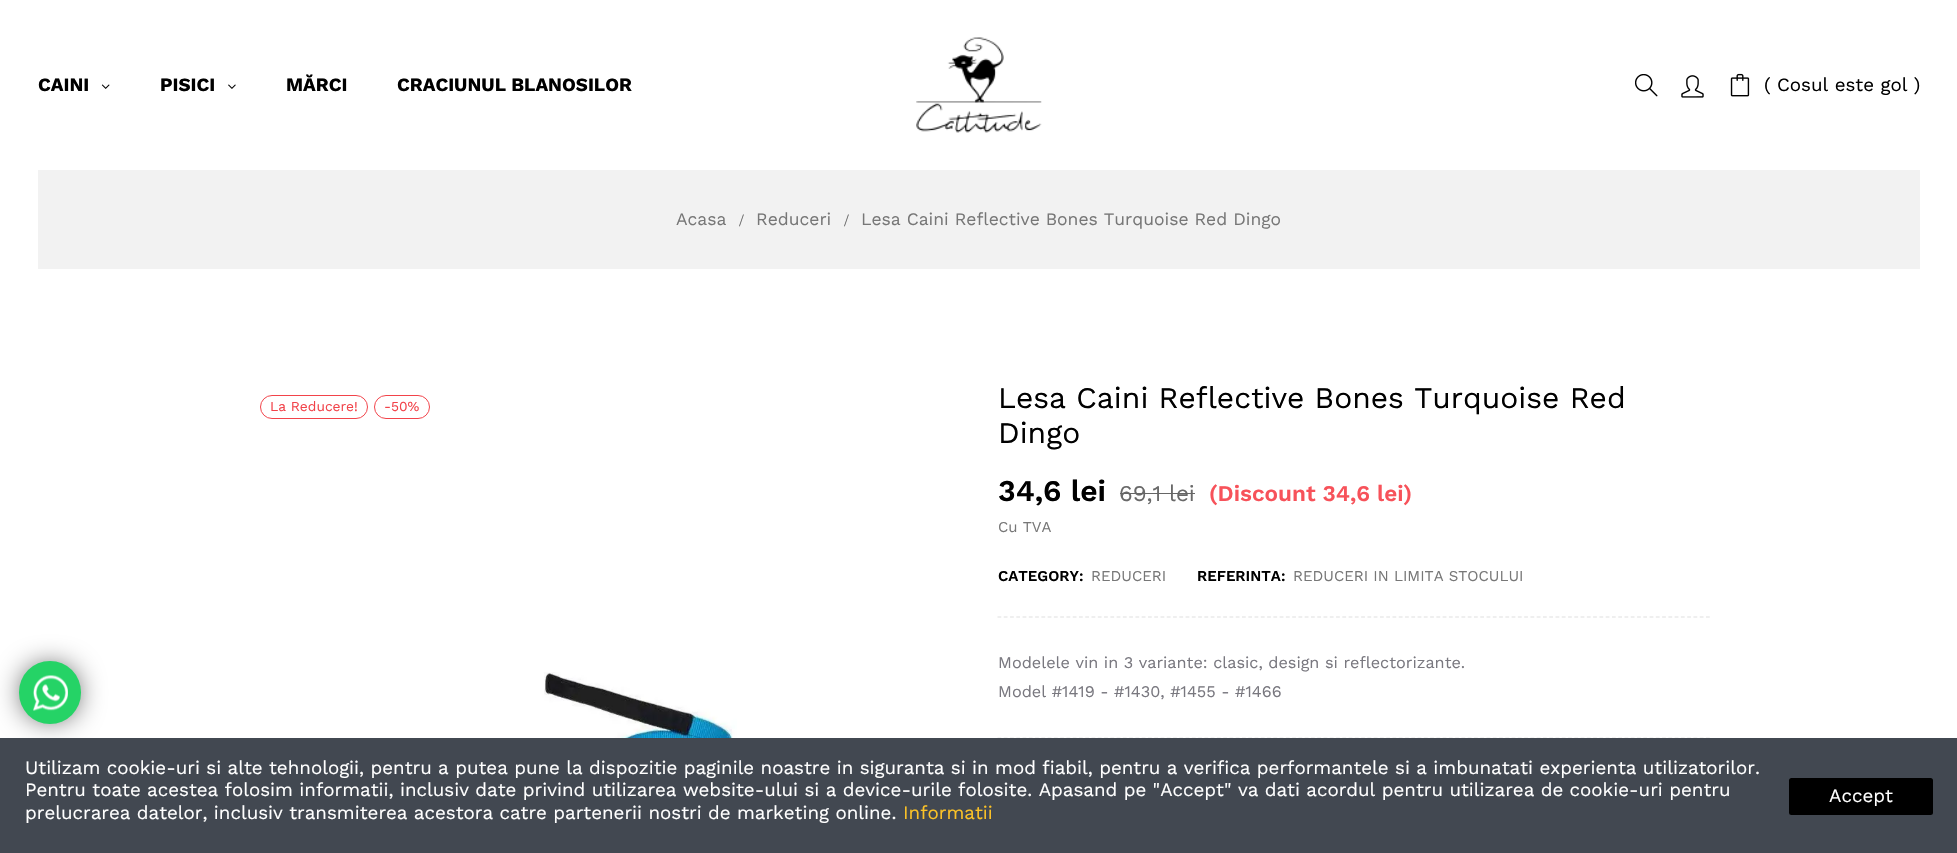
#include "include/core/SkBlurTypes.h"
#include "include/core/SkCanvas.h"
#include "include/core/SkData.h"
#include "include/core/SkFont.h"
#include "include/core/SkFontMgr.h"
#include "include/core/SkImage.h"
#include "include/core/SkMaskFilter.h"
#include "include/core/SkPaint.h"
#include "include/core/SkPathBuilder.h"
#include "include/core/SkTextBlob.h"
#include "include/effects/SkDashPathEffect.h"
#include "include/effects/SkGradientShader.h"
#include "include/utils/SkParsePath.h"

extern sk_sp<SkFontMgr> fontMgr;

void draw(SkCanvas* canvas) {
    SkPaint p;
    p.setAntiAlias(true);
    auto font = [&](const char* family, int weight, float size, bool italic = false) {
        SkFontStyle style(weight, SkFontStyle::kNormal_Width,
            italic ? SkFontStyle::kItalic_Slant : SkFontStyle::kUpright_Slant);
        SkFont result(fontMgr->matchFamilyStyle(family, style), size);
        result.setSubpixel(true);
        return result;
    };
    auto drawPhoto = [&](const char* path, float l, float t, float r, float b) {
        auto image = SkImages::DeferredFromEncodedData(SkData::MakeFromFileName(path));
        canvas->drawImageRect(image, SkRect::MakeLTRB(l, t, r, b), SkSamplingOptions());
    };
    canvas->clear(0xFFFFFFFF);
    auto font1 = font("Work Sans", 700, 18.75f);
    p.setColor(0xFF000000);
    canvas->drawString("CAINI", 38, 91, font1, p);
    drawPhoto("media/1.png", 101, 84, 110, 89);
    canvas->drawString("PISICI", 160, 91, font1, p);
    drawPhoto("media/2.png", 228, 84, 236, 89);
    canvas->drawString("MĂRCI", 286, 91, font1, p);
    canvas->drawString("CRACIUNUL BLANOSILOR", 397, 91, font1, p);
    drawPhoto("media/3.png", 916, 37, 1042, 133);
    drawPhoto("media/4.png", 1635, 74, 1658, 97);
    drawPhoto("media/5.png", 1681, 75, 1704, 98);
    drawPhoto("media/6.png", 1730, 73, 1750, 97);
    auto font2 = font("Work Sans", 400, 18.75f);
    canvas->drawString("( Cosul este gol )", 1764, 91, font2, p);
    p.setColor(0xFFF2F2F2);
    canvas->drawRect(SkRect::MakeLTRB(38, 170, 1920, 269), p);
    auto font3 = font("Work Sans", 400, 17.5f);
    p.setColor(0xFF777777);
    canvas->drawString("Acasa", 676, 225, font3, p);
    auto font4 = font("Liberation Serif", 400, 17.5f);
    p.setColor(0xFF696969);
    canvas->drawString("/", 739, 226, font4, p);
    p.setColor(0xFF777777);
    canvas->drawString("Reduceri", 756, 225, font3, p);
    p.setColor(0xFF696969);
    canvas->drawString("/", 844, 226, font4, p);
    p.setColor(0xFF777777);
    canvas->drawString("Lesa Caini Reflective Bones Turquoise Red Dingo", 861, 225, font3, p);
    p.setStyle(SkPaint::kStroke_Style);
    p.setStrokeWidth(1);
    p.setColor(0xFFF2434A);
    canvas->drawRoundRect(SkRect::MakeLTRB(260.5f, 395.5f, 367.5f, 418.5f), 11.5f, 11.5f, p);
    auto font5 = font("Work Sans", 400, 13.75f);
    p.setStyle(SkPaint::kFill_Style);
    canvas->drawString("La Reducere!", 270, 411, font5, p);
    p.setStyle(SkPaint::kStroke_Style);
    canvas->drawRoundRect(SkRect::MakeLTRB(374.5f, 395.5f, 429.5f, 418.5f), 11.5f, 11.5f, p);
    p.setStyle(SkPaint::kFill_Style);
    canvas->drawString("-50%", 384, 411, font5, p);
    drawPhoto("media/7.png", 474, 672, 737, 738);
    auto font6 = font("Work Sans", 400, 30);
    p.setColor(0xFF000000);
    canvas->drawString("Lesa Caini Reflective Bones Turquoise Red", 998, 408, font6, p);
    canvas->drawString("Dingo", 998, 443, font6, p);
    auto font7 = font("Work Sans", 600, 30);
    canvas->drawString("34,6 lei", 998, 501, font7, p);
    auto font8 = font("Work Sans", 400, 22.5f);
    p.setColor(0xFF696969);
    canvas->drawString("69,1 lei", 1119, 501, font8, p);
    p.setColor(0xFF666666);
    canvas->drawRect(SkRect::MakeLTRB(1120, 493, 1195, 494), p);
    auto font9 = font("Work Sans", 600, 22.5f);
    p.setColor(0xFFF7525A);
    canvas->drawString("(Discount 34,6 lei)", 1209, 501, font9, p);
    auto font10 = font("Work Sans", 400, 15);
    p.setColor(0xFF777777);
    canvas->drawString("Cu TVA", 998, 532, font10, p);
    auto font11 = font("Work Sans", 600, 15);
    p.setColor(0xFF000000);
    canvas->drawString("CATEGORY:", 998, 581, font11, p);
    p.setColor(0xFF777777);
    canvas->drawString("REDUCERI", 1091, 581, font10, p);
    p.setColor(0xFF000000);
    canvas->drawString("REFERINTA:", 1197, 581, font11, p);
    p.setColor(0xFF777777);
    canvas->drawString("REDUCERI IN LIMITA STOCULUI", 1293, 581, font10, p);
    p.setStyle(SkPaint::kStroke_Style);
    p.setStrokeWidth(1.2f);
    p.setColor(0xFFE0E0E0);
    p.setPathEffect(SkDashPathEffect::Make({{3.75f, 2.52f}}, 0));
    canvas->drawPath(SkPathBuilder().moveTo(997.5f, 617).lineTo(1710, 617).detach(), p);
    p.setPathEffect(nullptr);
    p.setColor(0xFFE8E8E8);
    p.setPathEffect(SkDashPathEffect::Make({{3.75f, 2.52f}}, 0));
    canvas->drawPath(SkPathBuilder().moveTo(997.5f, 738).lineTo(1710, 738).detach(), p);
    p.setPathEffect(nullptr);
    auto font12 = font("Work Sans", 400, 16.25f);
    p.setStyle(SkPaint::kFill_Style);
    p.setColor(0xFF79787F);
    canvas->drawString("Modelele vin in 3 variante: clasic, design si reflectorizante.", 998, 668, font12, p);
    canvas->drawString("Model #1419 - #1430, #1455 - #1466", 998, 697, font12, p);
    p.setColor(0xFF000000);
    p.setMaskFilter(SkMaskFilter::MakeBlur(kNormal_SkBlurStyle, 15.5f));
    canvas->drawRoundRect(SkRect::MakeLTRB(26, 669, 74, 716), 23.5f, 23.5f, p);
    p.setMaskFilter(nullptr);
    p.setColor(0xFF25D366);
    canvas->drawRoundRect(SkRect::MakeLTRB(19, 661, 81, 724), 31, 31, p);
    drawPhoto("media/8.png", 33, 675, 68, 711);
    p.setColor(0xFF424851);
    canvas->drawRect(SkRect::MakeLTRB(0, 738, 1957, 853), p);
    p.setColor(0xFFFFFFFF);
    {
        const struct { const char* s; float x, y; } items[] = {
            {"Utilizam cookie-uri si alte tehnologii, pentru a putea pune la dispozitie paginile noastre in siguranta si in mod fiabil, pentru a verifica performantele si a imbunatati experienta utilizatorilor.", 25, 774},
            {"Pentru toate acestea folosim informatii, inclusiv date privind utilizarea website-ului si a device-urile folosite. Apasand pe \"Accept\" va dati acordul pentru utilizarea de cookie-uri pentru", 25, 796},
            {"prelucrarea datelor, inclusiv transmiterea acestora catre partenerii nostri de marketing online.", 25, 819},
        };
        for (auto [s, x, y] : items) {
            canvas->drawString(s, x, y, font2, p);
        }
    }
    p.setColor(0xFFFBC227);
    canvas->drawString("Informatii", 903, 819, font2, p);
    p.setColor(0xFF000000);
    canvas->drawRoundRect(SkRect::MakeLTRB(1789, 778, 1933, 815), 2.5f, 2.5f, p);
    p.setColor(0xFFFFFFFF);
    canvas->drawString("Accept", 1829, 802, font2, p);
}
